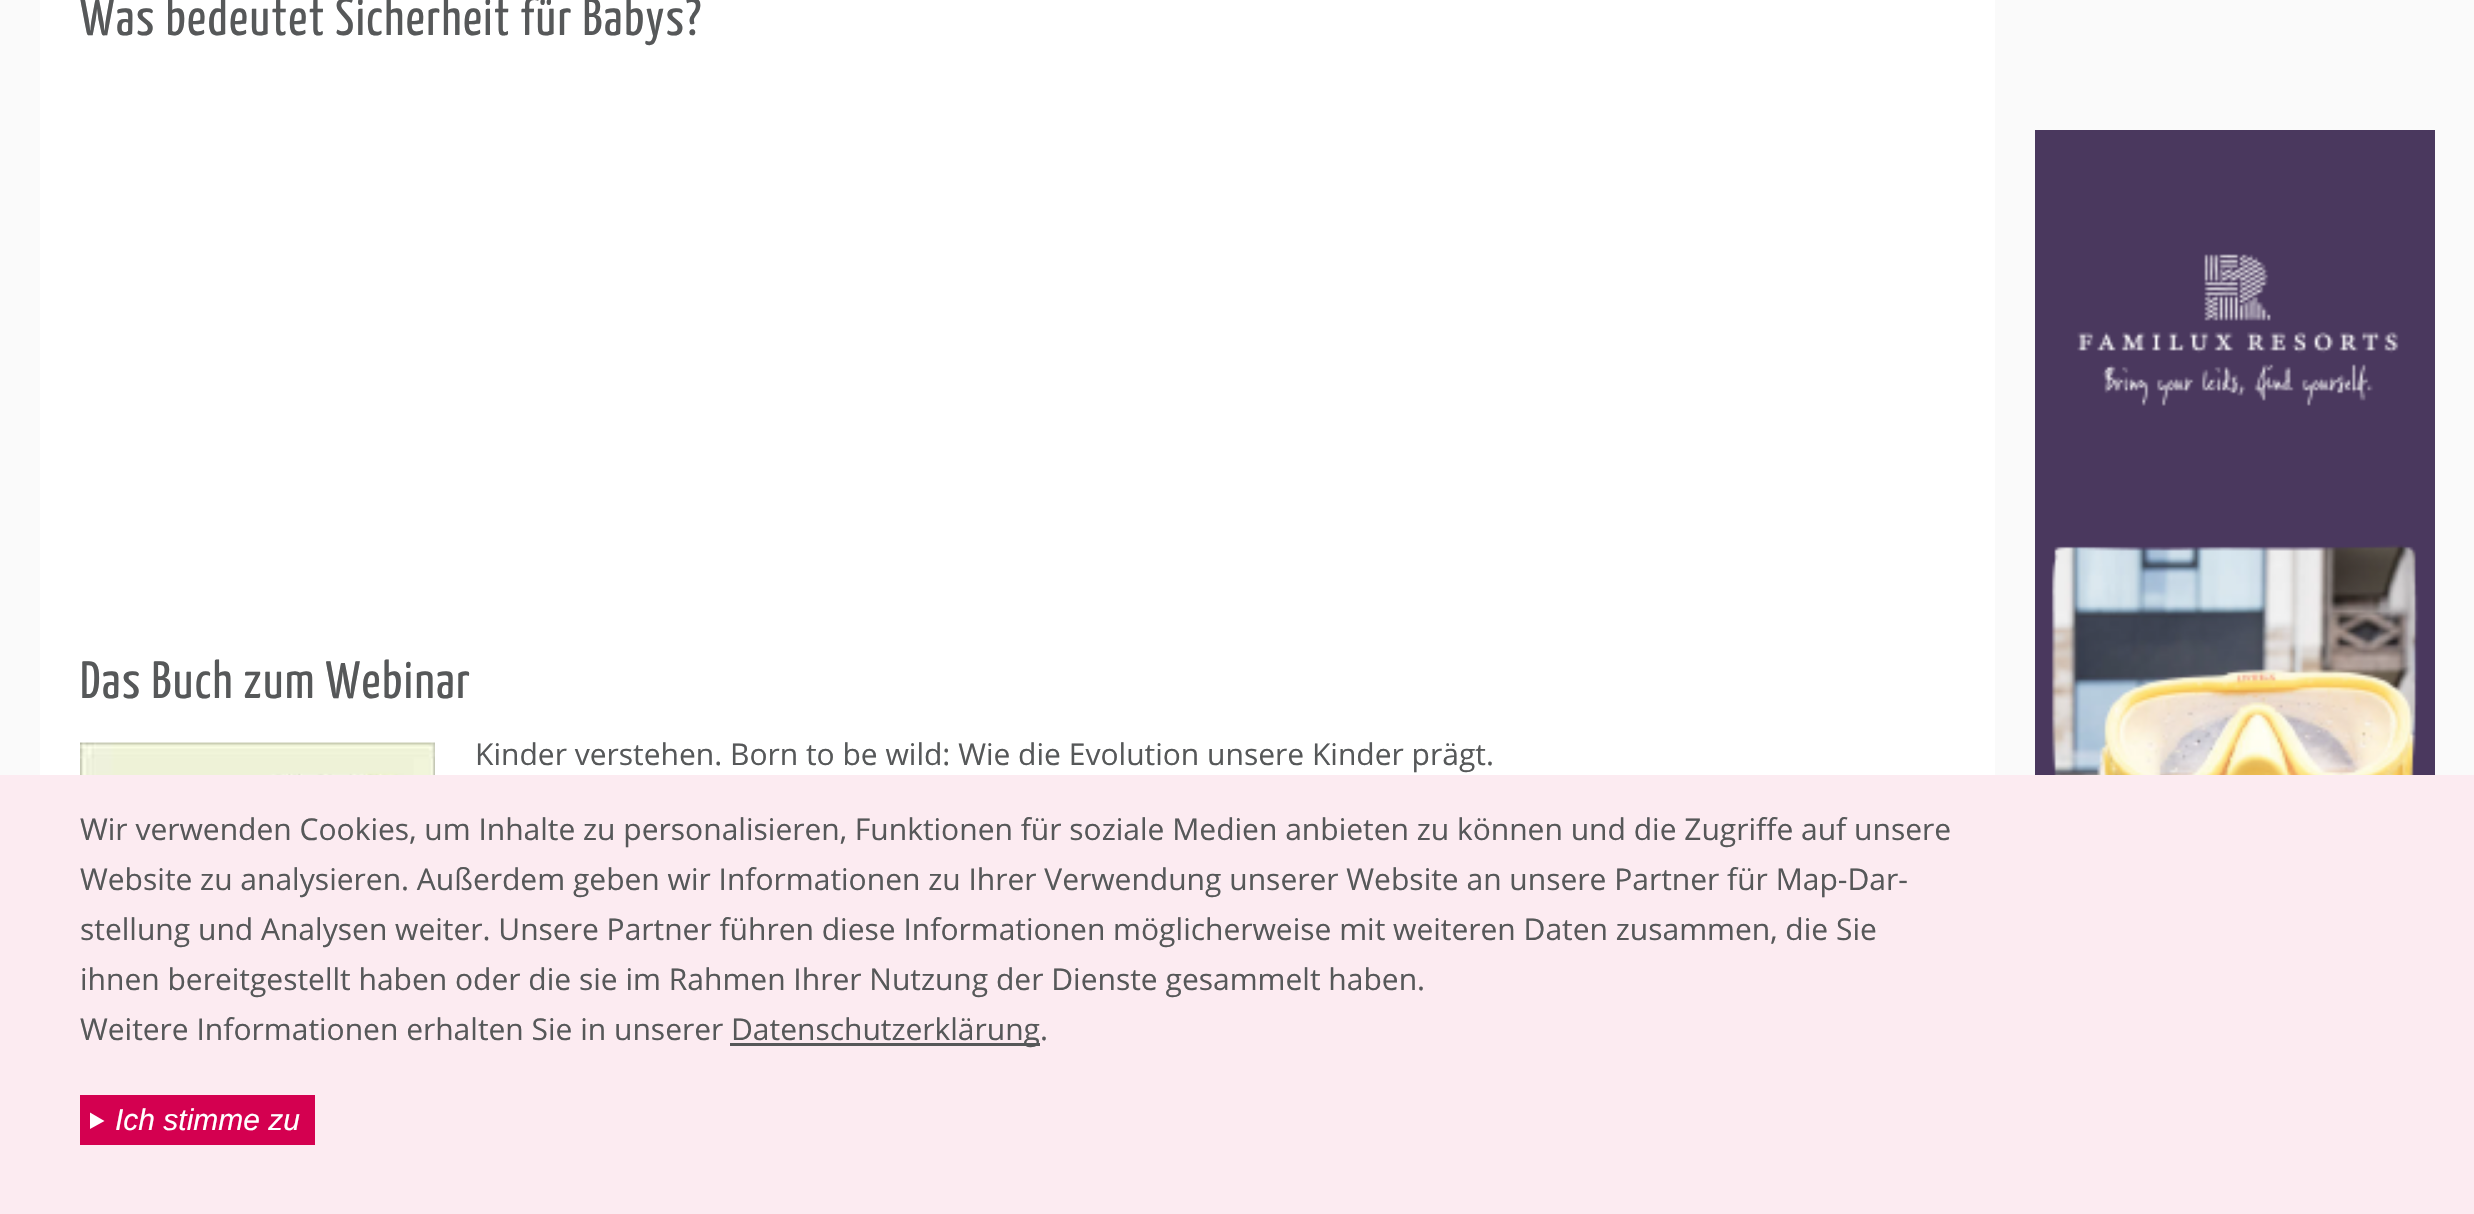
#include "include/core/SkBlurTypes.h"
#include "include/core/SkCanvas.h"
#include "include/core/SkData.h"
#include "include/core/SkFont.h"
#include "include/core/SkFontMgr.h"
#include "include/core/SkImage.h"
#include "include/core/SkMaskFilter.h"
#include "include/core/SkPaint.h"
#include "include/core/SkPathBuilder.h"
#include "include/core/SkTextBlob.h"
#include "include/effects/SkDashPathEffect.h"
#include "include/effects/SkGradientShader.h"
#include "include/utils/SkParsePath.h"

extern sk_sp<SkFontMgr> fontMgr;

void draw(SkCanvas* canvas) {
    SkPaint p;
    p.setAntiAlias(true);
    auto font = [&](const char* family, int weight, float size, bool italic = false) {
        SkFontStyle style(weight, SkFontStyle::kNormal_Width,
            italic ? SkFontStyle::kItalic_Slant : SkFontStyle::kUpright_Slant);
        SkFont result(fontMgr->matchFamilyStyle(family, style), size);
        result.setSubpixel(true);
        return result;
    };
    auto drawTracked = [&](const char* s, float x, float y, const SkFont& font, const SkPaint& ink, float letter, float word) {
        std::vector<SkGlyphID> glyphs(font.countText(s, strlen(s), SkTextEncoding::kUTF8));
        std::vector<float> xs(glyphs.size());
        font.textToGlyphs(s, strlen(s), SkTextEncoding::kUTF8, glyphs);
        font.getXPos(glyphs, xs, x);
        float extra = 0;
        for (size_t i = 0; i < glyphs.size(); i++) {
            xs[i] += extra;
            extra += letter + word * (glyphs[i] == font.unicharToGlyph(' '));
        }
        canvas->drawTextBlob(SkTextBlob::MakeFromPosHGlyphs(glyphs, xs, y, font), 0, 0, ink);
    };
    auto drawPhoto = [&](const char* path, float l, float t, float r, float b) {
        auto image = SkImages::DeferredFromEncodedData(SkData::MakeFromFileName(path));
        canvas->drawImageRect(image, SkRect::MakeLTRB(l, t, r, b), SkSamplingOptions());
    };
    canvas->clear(0xFFFFFFFF);
    p.setColor(0xFFFAFAFA);
    canvas->drawRect(SkRect::MakeLTRB(1995, 0, 2474, 775), p);
    canvas->drawRect(SkRect::MakeLTRB(0, 0, 40, 775), p);
    auto font1 = font("Yanone Kaffeesatz", 400, 52.5f);
    p.setColor(0xFF565859);
    drawTracked("Was bedeutet Sicherheit für Babys?", 80, 35, font1, p, 1.5f, 0);
    drawTracked("Das Buch zum Webinar", 80, 698, font1, p, 1.5f, 0);
    drawPhoto("media/1.png", 80, 742, 435, 775);
    auto font2 = font("Open Sans", 400, 30);
    canvas->drawString("Kinder verstehen. Born to be wild: Wie die Evolution unsere Kinder prägt.", 475, 765, font2, p);
    drawPhoto("media/2.png", 2035, 130, 2435, 775);
    p.setColor(0xFFFCEBF1);
    canvas->drawRect(SkRect::MakeLTRB(0, 775, 2474, 1214), p);
    p.setColor(0xFF565859);
    {
        const struct { const char* s; float x, y; } items[] = {
            {"Wir verwenden Cookies, um Inhalte zu personalisieren, Funktionen für soziale Medien anbieten zu können und die Zugriffe auf unsere", 80, 840},
            {"Website zu analysieren. Außerdem geben wir Informationen zu Ihrer Verwendung unserer Website an unsere Partner für Map-Dar-", 80, 890},
            {"stellung und Analysen weiter. Unsere Partner führen diese Informationen möglicherweise mit weiteren Daten zusammen, die Sie", 80, 940},
            {"ihnen bereitgestellt haben oder die sie im Rahmen Ihrer Nutzung der Dienste gesammelt haben.", 80, 990},
            {"Weitere Informationen erhalten Sie in unserer", 80, 1040},
        };
        for (auto [s, x, y] : items) {
            canvas->drawString(s, x, y, font2, p);
        }
    }
    canvas->drawRect(SkRect::MakeLTRB(730, 1043, 1040, 1046), p);
    canvas->drawString("Datenschutzerklärung.", 731, 1040, font2, p);
    p.setColor(0xFFD40050);
    canvas->drawRect(SkRect::MakeLTRB(80, 1095, 315, 1145), p);
    p.setColor(0xFFFFFFFF);
    canvas->drawPath(SkPathBuilder().moveTo(90, 1112.5f).lineTo(104.5f, 1121).lineTo(90, 1129).close().detach(), p);
    auto font3 = font("Liberation Sans", 400, 30, true);
    canvas->drawString("Ich stimme zu", 115, 1130, font3, p);
}
